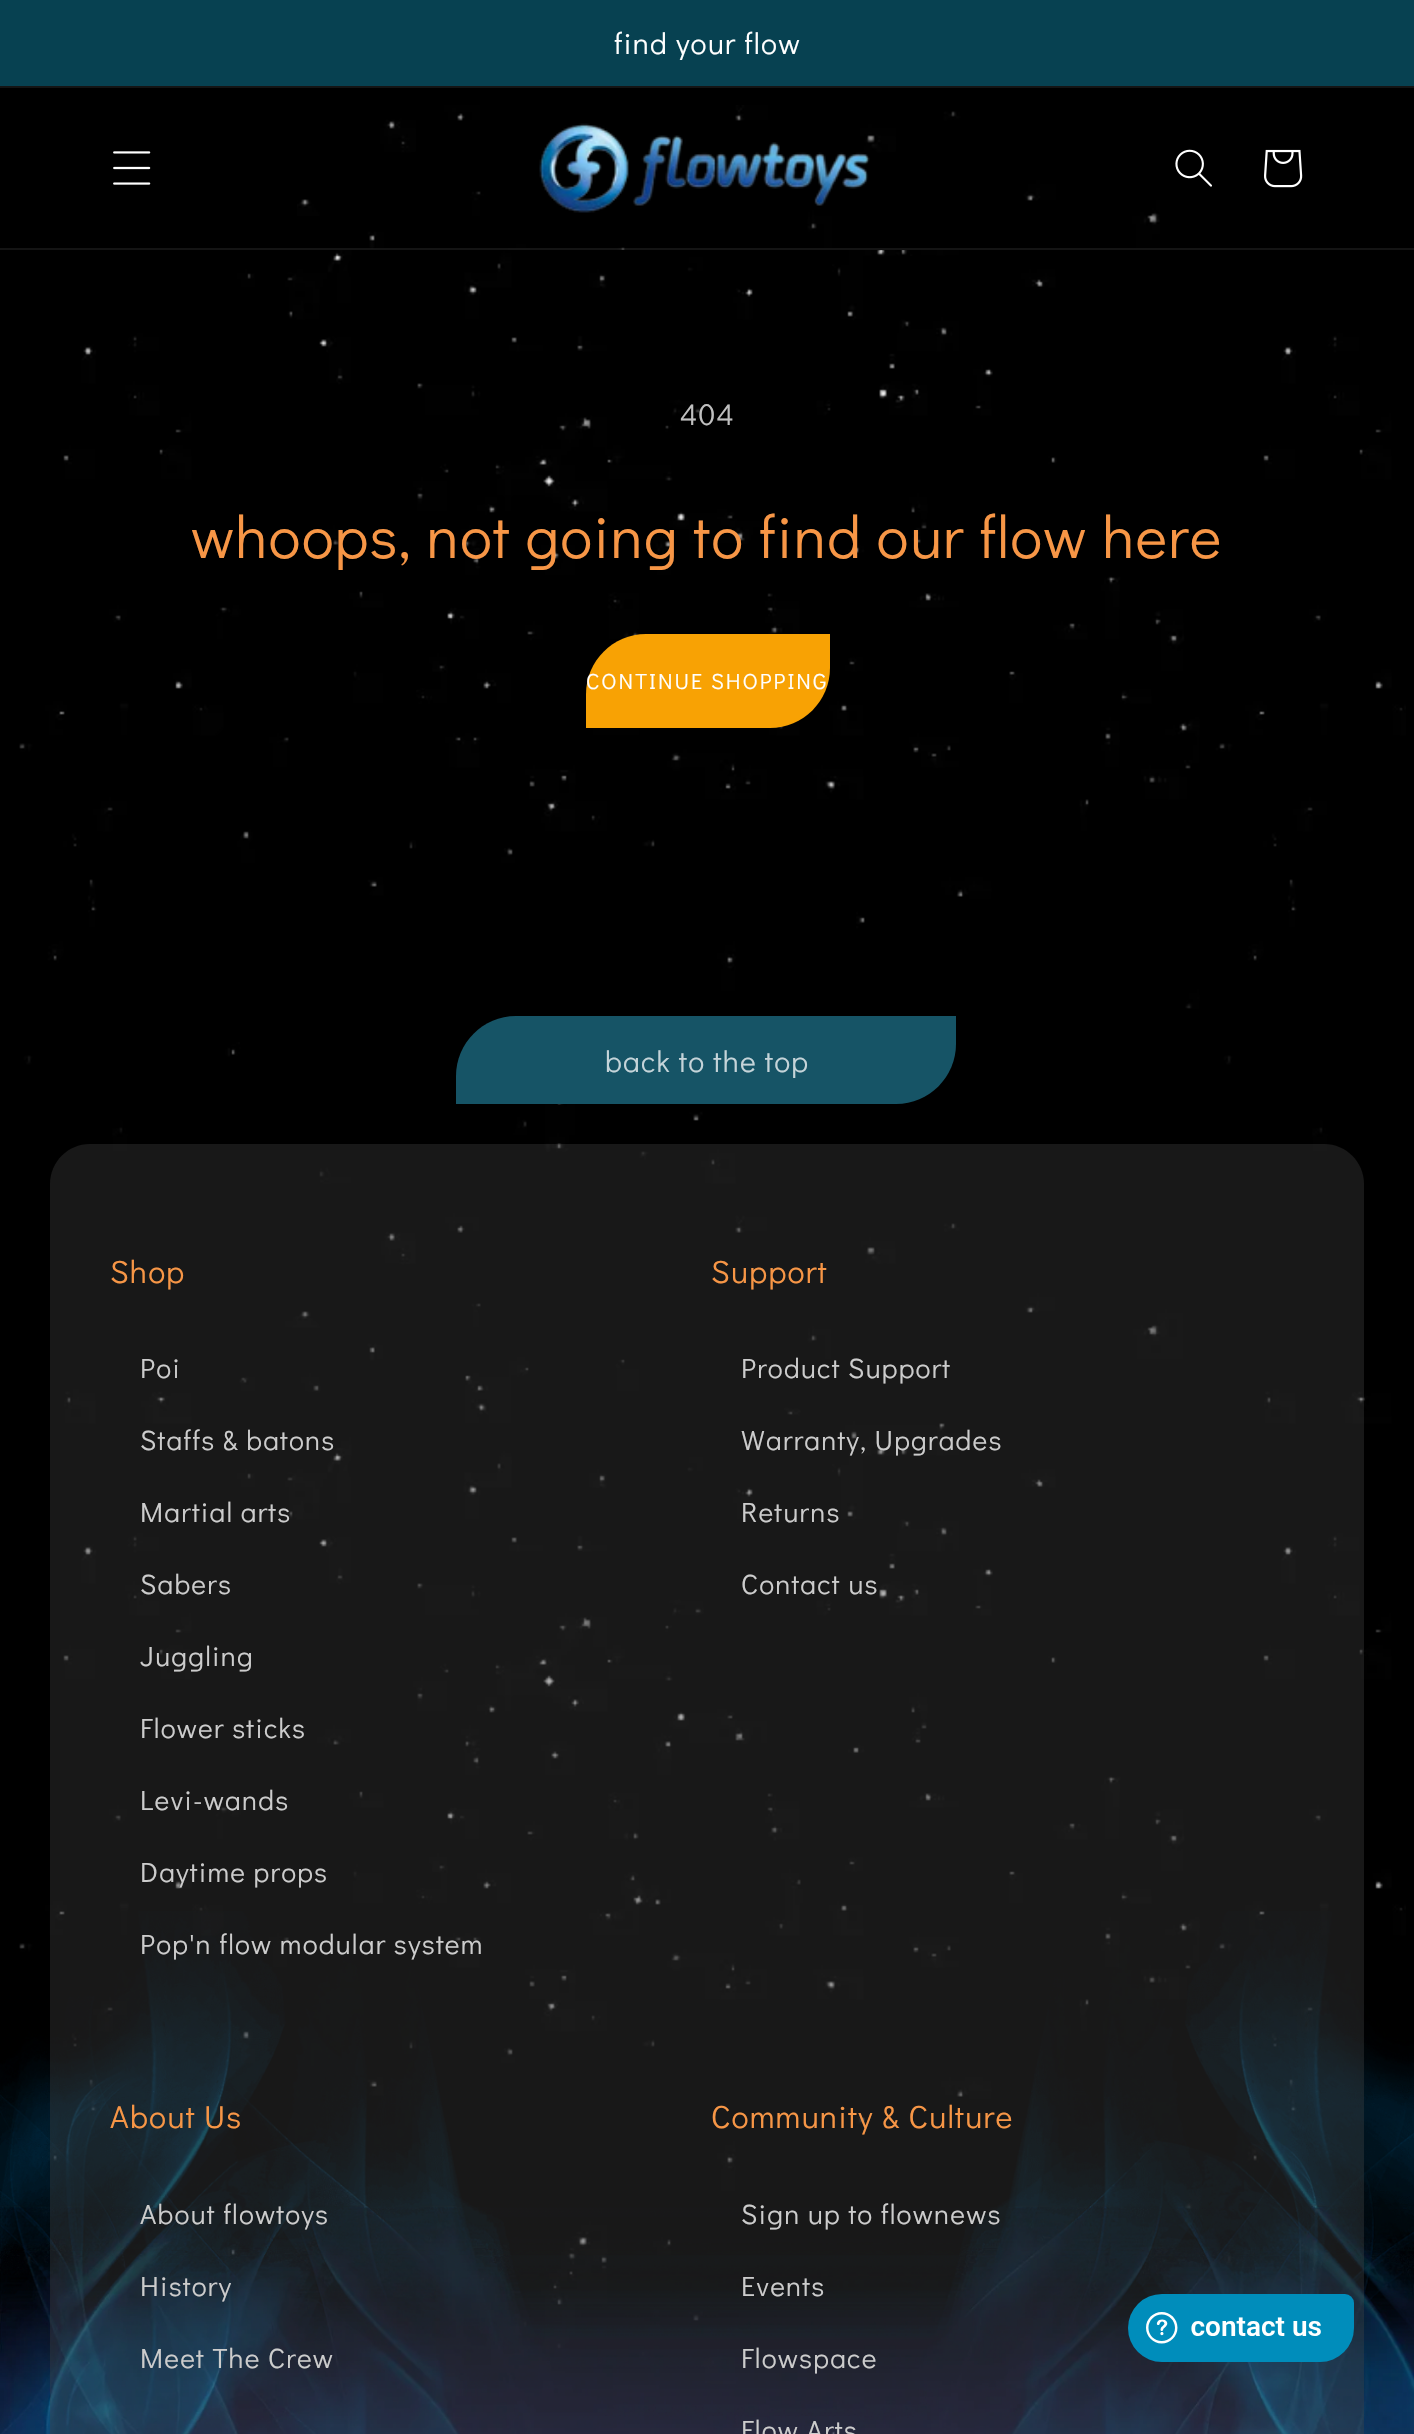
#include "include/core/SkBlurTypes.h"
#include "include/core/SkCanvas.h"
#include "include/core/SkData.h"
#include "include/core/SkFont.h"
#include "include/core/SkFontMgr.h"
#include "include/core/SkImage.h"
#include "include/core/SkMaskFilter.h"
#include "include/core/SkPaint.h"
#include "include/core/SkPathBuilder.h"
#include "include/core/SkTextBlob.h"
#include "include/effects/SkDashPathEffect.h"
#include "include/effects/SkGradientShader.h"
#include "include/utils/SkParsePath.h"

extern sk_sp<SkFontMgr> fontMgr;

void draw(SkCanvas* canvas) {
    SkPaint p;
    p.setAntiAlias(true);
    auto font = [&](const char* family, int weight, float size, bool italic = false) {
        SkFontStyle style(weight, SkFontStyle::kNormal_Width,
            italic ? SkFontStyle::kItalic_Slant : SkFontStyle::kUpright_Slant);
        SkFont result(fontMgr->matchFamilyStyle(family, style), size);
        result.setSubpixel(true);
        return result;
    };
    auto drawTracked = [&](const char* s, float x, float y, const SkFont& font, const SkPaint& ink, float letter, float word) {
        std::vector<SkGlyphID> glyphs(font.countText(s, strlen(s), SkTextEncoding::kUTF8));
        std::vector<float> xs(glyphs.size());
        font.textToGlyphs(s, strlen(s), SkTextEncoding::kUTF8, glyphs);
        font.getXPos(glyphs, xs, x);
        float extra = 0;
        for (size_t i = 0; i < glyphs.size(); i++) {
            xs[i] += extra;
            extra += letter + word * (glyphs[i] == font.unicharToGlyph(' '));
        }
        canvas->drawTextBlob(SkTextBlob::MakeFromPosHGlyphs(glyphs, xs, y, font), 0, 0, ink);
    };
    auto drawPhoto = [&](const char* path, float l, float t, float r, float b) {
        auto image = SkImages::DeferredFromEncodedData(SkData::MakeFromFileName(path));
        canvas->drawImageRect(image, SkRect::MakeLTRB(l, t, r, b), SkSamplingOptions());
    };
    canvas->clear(0xFF000000);
    drawPhoto("media/1.png", 19, 250, 1406, 2434);
    p.setColor(0xFF141414);
    canvas->drawRect(SkRect::MakeLTRB(0, 86, 1414, 88), p);
    p.setColor(0xFF074151);
    canvas->drawRect(SkRect::MakeLTRB(0, 0, 1414, 86), p);
    auto font1 = font("Didact Gothic", 400, 30);
    p.setColor(0xFFFFFFFF);
    drawTracked("find your flow", 614, 54, font1, p, 1.2f, 0);
    drawPhoto("media/2.png", 297, 105, 1160, 250);
    p.setColor(0x14FFFFFF);
    canvas->drawRect(SkRect::MakeLTRB(0, 248, 1414, 250), p);
    drawPhoto("media/3.png", 113, 151, 151, 185);
    drawPhoto("media/4.png", 539, 123, 870, 213);
    drawPhoto("media/5.png", 1175, 149, 1212, 187);
    drawPhoto("media/6.png", 1264, 149, 1303, 188);
    p.setColor(0xFFBFBFBF);
    drawTracked("404", 680, 425, font1, p, 1.2f, 0);
    auto font2 = font("Didact Gothic", 400, 60);
    p.setColor(0xFFF79646);
    drawTracked("whoops, not going to find our flow here", 191, 558, font2, p, 1.2f, 0);
    p.setColor(0xFFF8A204);
    canvas->drawPath(SkPathBuilder().moveTo(646, 634).lineTo(830, 634).lineTo(830, 668).cubicTo(830, 701, 803, 728, 770, 728).lineTo(586, 728).lineTo(586, 694).cubicTo(586, 661, 613, 634, 646, 634).close().detach(), p);
    auto font3 = font("Didact Gothic", 400, 22);
    p.setColor(0xFFFFFFFF);
    drawTracked("CONTINUE SHOPPING", 586, 689, font3, p, 2, 0);
    drawPhoto("media/7.png", 0, 1911, 1414, 2434);
    p.setColor(0xFF165466);
    canvas->drawPath(SkPathBuilder().moveTo(516, 1016).lineTo(956, 1016).lineTo(956, 1044).cubicTo(956, 1077, 929, 1104, 896, 1104).lineTo(456, 1104).lineTo(456, 1076).cubicTo(456, 1043, 483, 1016, 516, 1016).close().detach(), p);
    p.setColor(0xFFC5D4D9);
    drawTracked("back to the top", 605, 1072, font1, p, 1.2f, 0);
    p.setColor(0x59444444);
    canvas->drawPath(SkPathBuilder().moveTo(90, 1144).lineTo(1324, 1144).cubicTo(1346, 1144, 1364, 1162, 1364, 1184).lineTo(1364, 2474).lineTo(50, 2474).lineTo(50, 1184).cubicTo(50, 1162, 68, 1144, 90, 1144).close().detach(), p);
    auto font4 = font("Didact Gothic", 400, 32);
    p.setColor(0xFFF79646);
    drawTracked("Shop", 110, 1283, font4, p, 1.2f, 0);
    auto font5 = font("Didact Gothic", 400, 28);
    p.setColor(0xFFCCCCCC);
    {
        const struct { const char* s; float x, y; } items[] = {
            {"Poi", 140, 1378},
            {"Staffs & batons", 140, 1450},
            {"Martial arts", 140, 1522},
            {"Sabers", 140, 1594},
            {"Juggling", 140, 1666},
            {"Flower sticks", 140, 1738},
            {"Levi-wands", 140, 1810},
            {"Daytime props", 140, 1882},
            {"Pop'n flow modular system", 140, 1954},
        };
        for (auto [s, x, y] : items) {
            drawTracked(s, x, y, font5, p, 1.2f, 0);
        }
    }
    p.setColor(0xFFF79646);
    drawTracked("Support", 711, 1283, font4, p, 1.2f, 0);
    p.setColor(0xFFCCCCCC);
    {
        const struct { const char* s; float x, y; } items[] = {
            {"Product Support", 741, 1378},
            {"Warranty, Upgrades", 741, 1450},
            {"Returns", 741, 1522},
            {"Contact us", 741, 1594},
        };
        for (auto [s, x, y] : items) {
            drawTracked(s, x, y, font5, p, 1.2f, 0);
        }
    }
    p.setColor(0xFFF79646);
    drawTracked("About Us", 110, 2128, font4, p, 1.2f, 0);
    p.setColor(0xFFCCCCCC);
    {
        const struct { const char* s; float x, y; } items[] = {
            {"About flowtoys", 140, 2224},
            {"History", 140, 2296},
            {"Meet The Crew", 140, 2368},
        };
        for (auto [s, x, y] : items) {
            drawTracked(s, x, y, font5, p, 1.2f, 0);
        }
    }
    p.setColor(0xFFF79646);
    drawTracked("Community & Culture", 711, 2128, font4, p, 1.2f, 0);
    p.setColor(0xFFCCCCCC);
    {
        const struct { const char* s; float x, y; } items[] = {
            {"Sign up to flownews", 741, 2224},
            {"Events", 741, 2296},
            {"Flowspace", 741, 2368},
            {"Flow Arts", 741, 2440},
        };
        for (auto [s, x, y] : items) {
            drawTracked(s, x, y, font5, p, 1.2f, 0);
        }
    }
    drawPhoto("media/8.png", 1128, 2294, 1354, 2362);
}
